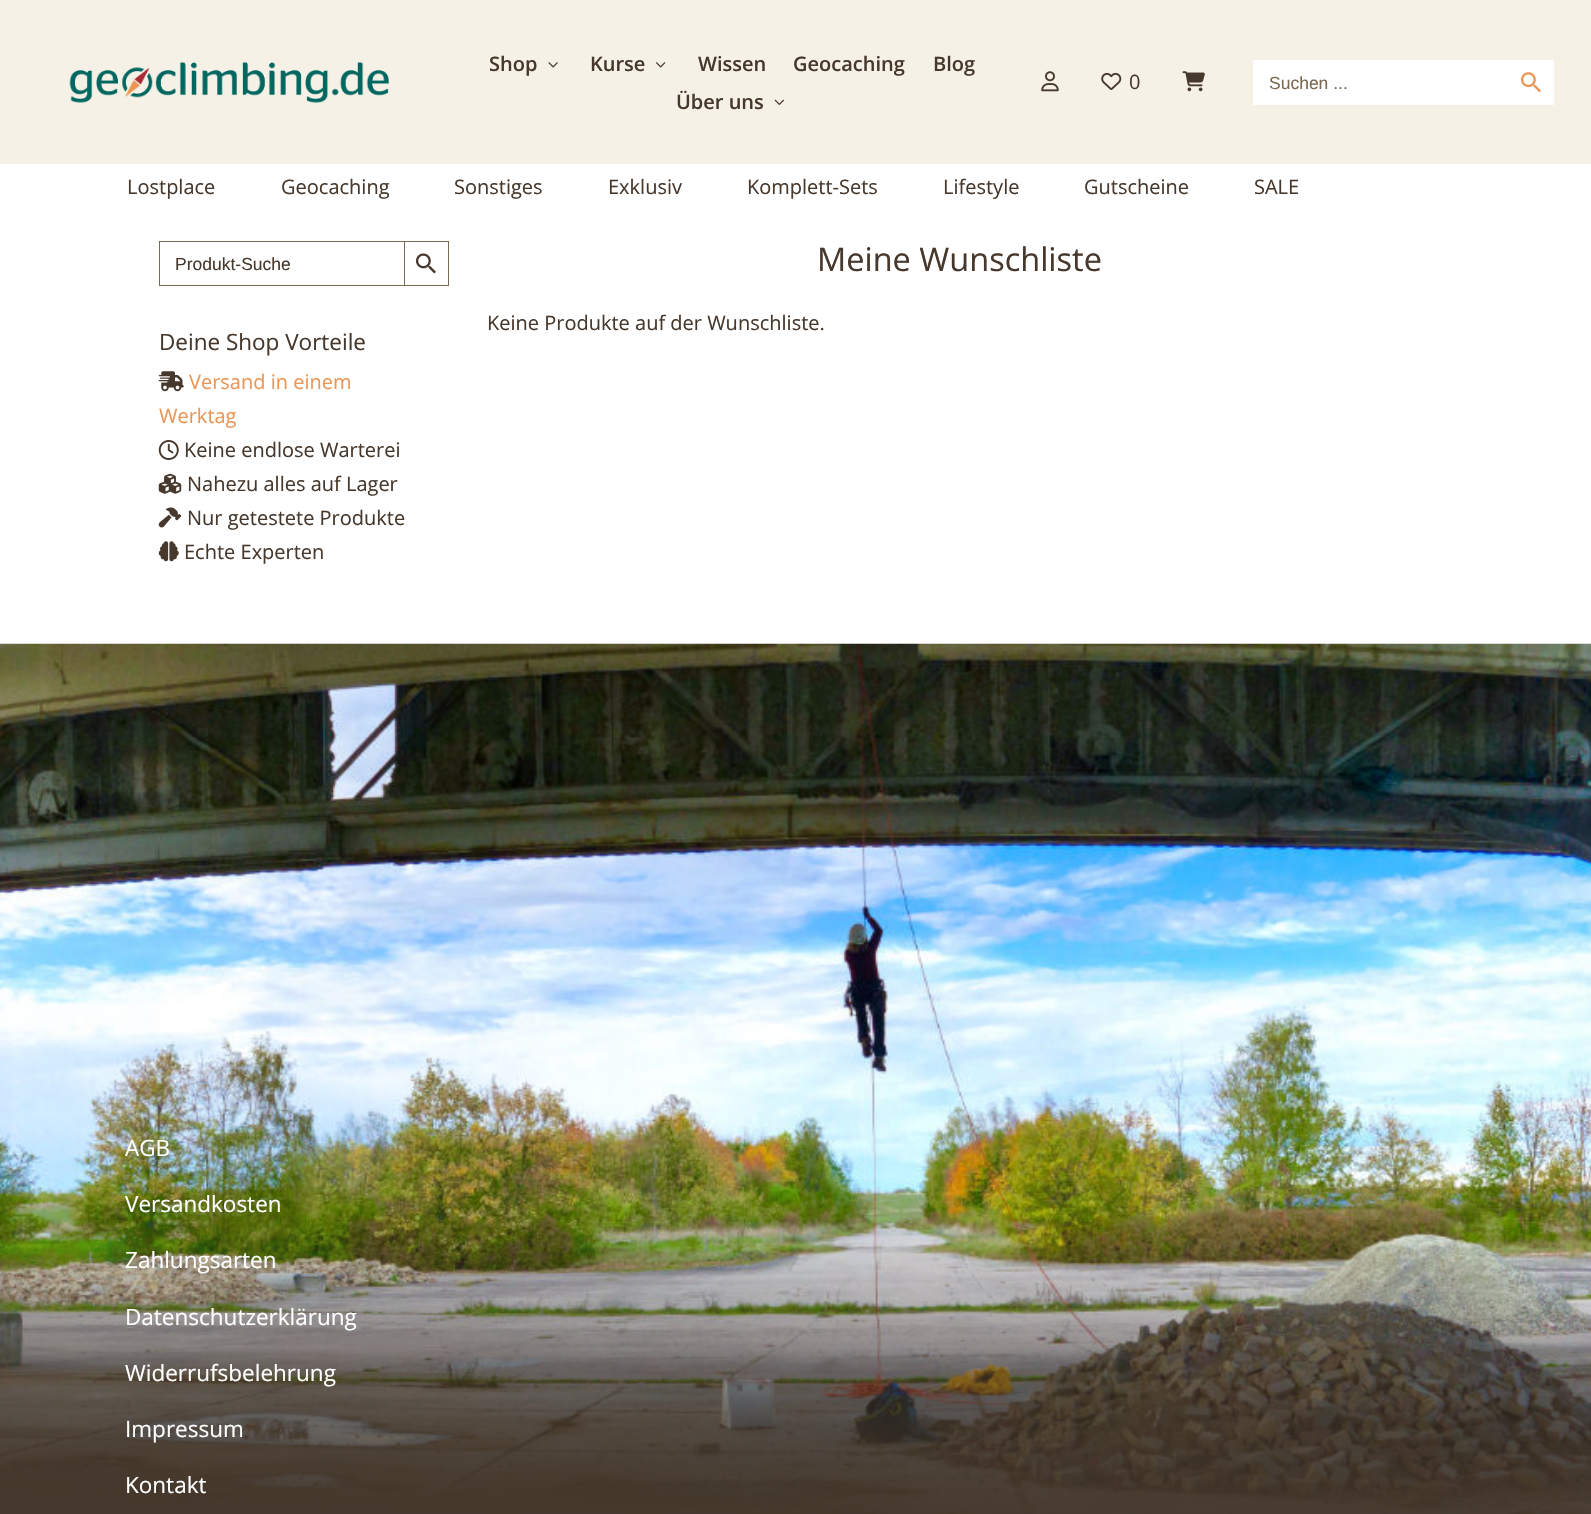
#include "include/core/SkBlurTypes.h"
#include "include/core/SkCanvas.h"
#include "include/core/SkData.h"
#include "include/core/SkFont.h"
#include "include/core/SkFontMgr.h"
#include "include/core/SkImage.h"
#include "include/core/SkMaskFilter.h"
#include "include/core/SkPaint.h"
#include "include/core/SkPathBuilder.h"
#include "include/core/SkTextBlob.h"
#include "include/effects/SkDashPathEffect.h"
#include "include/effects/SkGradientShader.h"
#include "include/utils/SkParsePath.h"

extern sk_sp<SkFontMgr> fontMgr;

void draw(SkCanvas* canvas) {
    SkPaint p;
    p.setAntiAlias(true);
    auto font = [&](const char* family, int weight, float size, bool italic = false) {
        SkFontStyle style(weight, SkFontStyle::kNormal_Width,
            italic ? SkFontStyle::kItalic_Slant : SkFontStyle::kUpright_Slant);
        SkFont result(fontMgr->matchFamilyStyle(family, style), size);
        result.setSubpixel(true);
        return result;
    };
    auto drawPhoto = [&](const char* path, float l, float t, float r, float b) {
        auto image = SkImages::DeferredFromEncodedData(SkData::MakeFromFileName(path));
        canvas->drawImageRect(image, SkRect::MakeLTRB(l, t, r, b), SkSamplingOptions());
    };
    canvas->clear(0xFFFFFFFF);
    p.setColor(0xFFF5F1E6);
    canvas->drawRect(SkRect::MakeLTRB(0, 0, 1591, 164), p);
    drawPhoto("media/1.png", 69, 62, 389, 103);
    auto font1 = font("Open Sans", 600, 20);
    p.setColor(0xFF46382C);
    canvas->drawString("Shop", 489, 71, font1, p);
    drawPhoto("media/2.png", 548, 62, 558, 68);
    canvas->drawString("Kurse", 590, 71, font1, p);
    drawPhoto("media/3.png", 656, 62, 666, 68);
    {
        const struct { const char* s; float x, y; } items[] = {
            {"Wissen", 698, 71},
            {"Geocaching", 793, 71},
            {"Blog", 933, 71},
            {"Über uns", 676, 109},
        };
        for (auto [s, x, y] : items) {
            canvas->drawString(s, x, y, font1, p);
        }
    }
    drawPhoto("media/4.png", 774, 99, 784, 105);
    drawPhoto("media/5.png", 1041, 71, 1059, 92);
    drawPhoto("media/6.png", 1101, 72, 1122, 90);
    auto font2 = font("Open Sans", 400, 20);
    canvas->drawString("0", 1129, 89, font2, p);
    drawPhoto("media/7.png", 1182, 71, 1205, 92);
    p.setColor(0xFFFFFFFF);
    canvas->drawRect(SkRect::MakeLTRB(1253, 60, 1554, 105), p);
    drawPhoto("media/8.png", 1520, 72, 1541, 93);
    auto font3 = font("Liberation Sans", 400, 17.5f);
    p.setColor(0xFF7C6951);
    canvas->drawString("Suchen ...", 1269, 89, font3, p);
    p.setColor(0xFF46382C);
    {
        const struct { const char* s; float x, y; } items[] = {
            {"Lostplace", 127, 194},
            {"Geocaching", 281, 194},
            {"Sonstiges", 454, 194},
            {"Exklusiv", 608, 194},
            {"Komplett-Sets", 747, 194},
            {"Lifestyle", 943, 194},
            {"Gutscheine", 1084, 194},
            {"SALE", 1254, 194},
        };
        for (auto [s, x, y] : items) {
            canvas->drawString(s, x, y, font2, p);
        }
    }
    {
        const struct { float l, t, r, b; SkColor color; } items[] = {
            {159, 241, 404, 242, 0xFF7C6951},
            {159, 285, 404, 286, 0xFF7C6951},
            {159, 241, 160, 286, 0xFF7C6951},
        };
        for (auto [l, t, r, b, color] : items) {
            p.setColor(color);
            canvas->drawRect(SkRect::MakeLTRB(l, t, r, b), p);
        }
    }
    p.setColor(0xFF46382C);
    canvas->drawString("Produkt-Suche", 175, 270, font3, p);
    p.setStyle(SkPaint::kStroke_Style);
    p.setStrokeWidth(1);
    p.setColor(0xFF7C6951);
    canvas->drawRect(SkRect::MakeLTRB(404.5f, 241.5f, 448.5f, 285.5f), p);
    drawPhoto("media/9.png", 415, 253, 436, 274);
    auto font4 = font("Open Sans", 400, 22.5f);
    p.setStyle(SkPaint::kFill_Style);
    p.setColor(0xFF46382C);
    canvas->drawString("Deine Shop Vorteile", 159, 350, font4, p);
    drawPhoto("media/10.png", 158, 371, 184, 392);
    p.setColor(0xFFEB9655);
    canvas->drawString("Versand in einem", 189, 389, font2, p);
    canvas->drawString("Werktag", 159, 423, font2, p);
    drawPhoto("media/11.png", 158, 440, 179, 460);
    p.setColor(0xFF46382C);
    canvas->drawString("Keine endlose Warterei", 184, 457, font2, p);
    drawPhoto("media/12.png", 158, 473, 182, 494);
    canvas->drawString("Nahezu alles auf Lager", 187, 491, font2, p);
    drawPhoto("media/13.png", 158, 507, 182, 528);
    canvas->drawString("Nur getestete Produkte", 187, 525, font2, p);
    drawPhoto("media/14.png", 158, 541, 179, 562);
    canvas->drawString("Echte Experten", 184, 559, font2, p);
    auto font5 = font("Open Sans", 400, 32.5f);
    canvas->drawString("Meine Wunschliste", 817, 271, font5, p);
    canvas->drawString("Keine Produkte auf der Wunschliste.", 487, 330, font2, p);
    drawPhoto("media/15.png", 0, 643, 1591, 1514);
    p.setColor(0xFFFFFFFF);
    {
        const struct { const char* s; float x, y; } items[] = {
            {"AGB", 125, 1156},
            {"Versandkosten", 125, 1212},
            {"Zahlungsarten", 125, 1268},
            {"Datenschutzerklärung", 125, 1325},
            {"Widerrufsbelehrung", 125, 1381},
            {"Impressum", 125, 1437},
            {"Kontakt", 125, 1493},
        };
        for (auto [s, x, y] : items) {
            canvas->drawString(s, x, y, font4, p);
        }
    }
}
